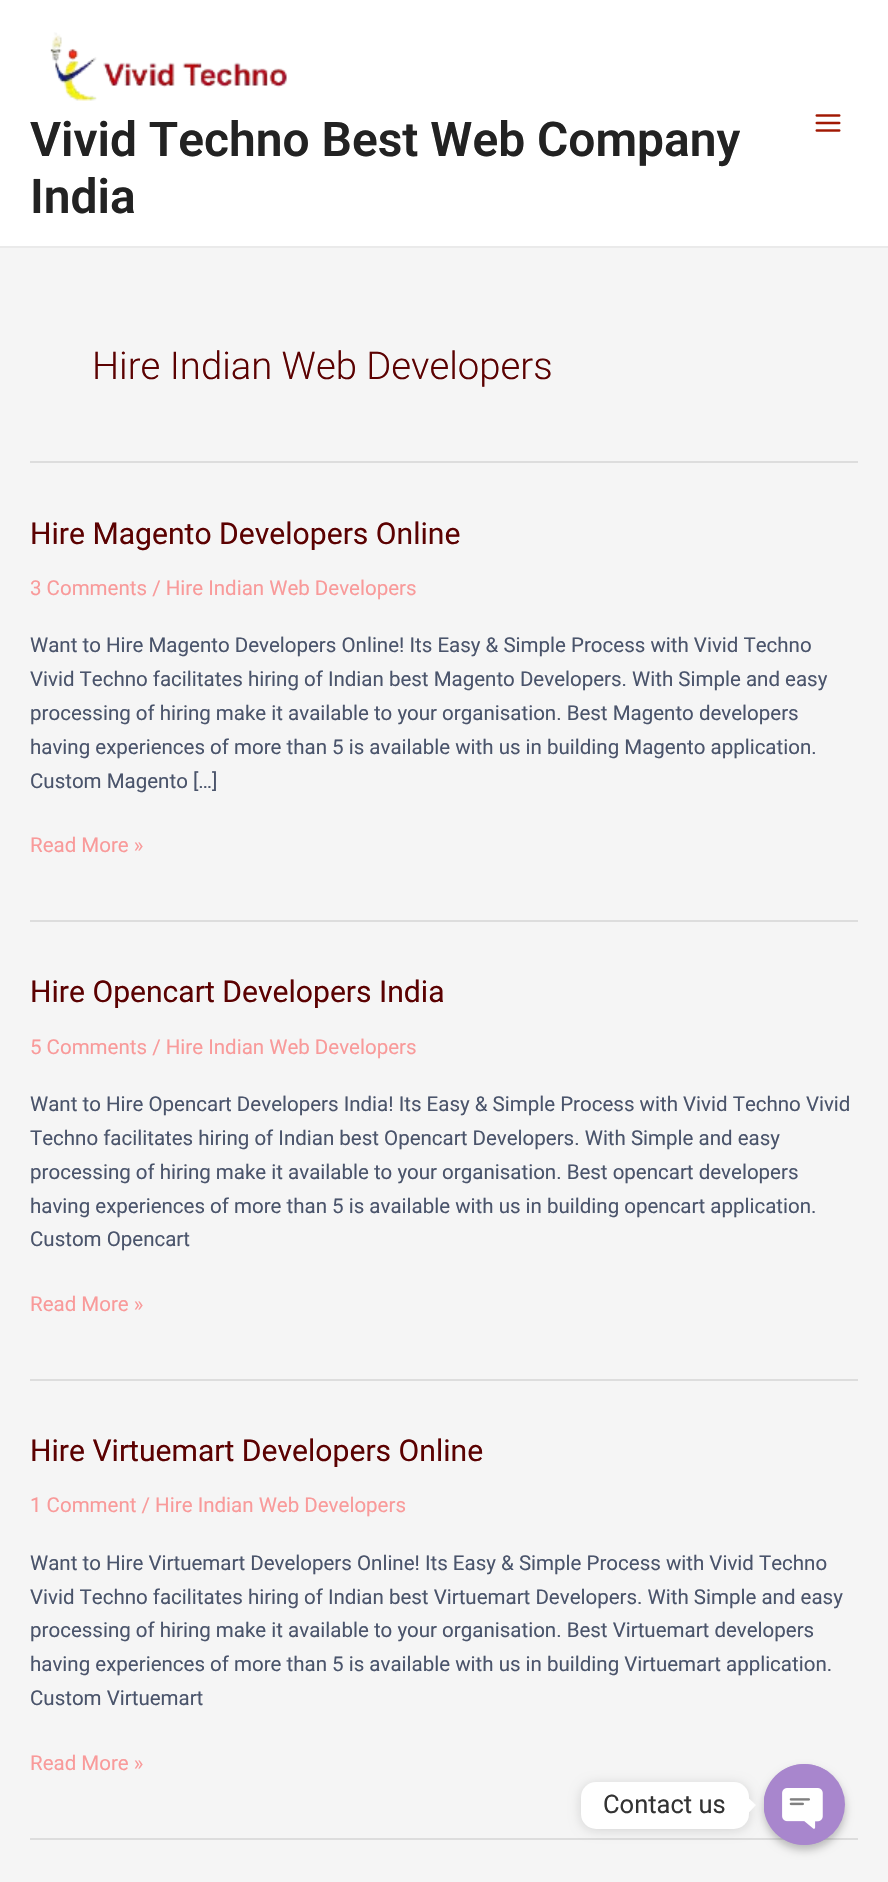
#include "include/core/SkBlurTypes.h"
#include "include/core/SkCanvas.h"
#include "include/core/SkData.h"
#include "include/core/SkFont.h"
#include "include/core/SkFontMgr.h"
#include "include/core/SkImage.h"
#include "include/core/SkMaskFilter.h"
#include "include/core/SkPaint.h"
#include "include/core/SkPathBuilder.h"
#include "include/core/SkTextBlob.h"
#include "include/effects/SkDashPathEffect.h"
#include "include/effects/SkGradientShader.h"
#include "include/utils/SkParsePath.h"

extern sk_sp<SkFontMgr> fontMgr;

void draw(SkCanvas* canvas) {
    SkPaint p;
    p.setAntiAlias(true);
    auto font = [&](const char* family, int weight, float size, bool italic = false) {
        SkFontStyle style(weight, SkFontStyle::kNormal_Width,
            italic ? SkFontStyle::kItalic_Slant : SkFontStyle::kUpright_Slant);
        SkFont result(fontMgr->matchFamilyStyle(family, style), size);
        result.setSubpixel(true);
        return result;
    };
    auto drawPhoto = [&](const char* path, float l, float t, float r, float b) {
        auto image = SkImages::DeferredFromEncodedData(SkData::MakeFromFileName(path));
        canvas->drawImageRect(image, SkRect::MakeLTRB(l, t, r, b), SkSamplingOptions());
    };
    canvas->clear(0xFFF5F5F5);
    p.setColor(0xFFFFFFFF);
    canvas->drawRect(SkRect::MakeLTRB(0, 0, 888, 246), p);
    p.setColor(0xFFEAEAEA);
    canvas->drawRect(SkRect::MakeLTRB(0, 246, 888, 248), p);
    drawPhoto("media/1.png", 50, 32, 287, 101);
    auto font1 = font("Roboto", 600, 47.9f);
    p.setColor(0xFF222222);
    canvas->drawString("Vivid Techno Best Web Company", 30, 156, font1, p);
    canvas->drawString("India", 30, 213, font1, p);
    drawPhoto("media/2.png", 815, 114, 841, 132);
    p.setColor(0xFFDDDDDD);
    canvas->drawRect(SkRect::MakeLTRB(30, 461, 858, 463), p);
    auto font2 = font("Roboto", 300, 38.25f);
    p.setColor(0xFF5B0101);
    canvas->drawString("Hire Indian Web Developers", 92, 379, font2, p);
    p.setColor(0xFFDDDDDD);
    canvas->drawRect(SkRect::MakeLTRB(30, 920, 858, 922), p);
    auto font3 = font("Roboto", 400, 30.1f);
    p.setColor(0xFF5B0101);
    canvas->drawString("Hire Magento Developers Online", 30, 544, font3, p);
    auto font4 = font("Roboto", 400, 20.5f);
    p.setColor(0xFFF99A9A);
    canvas->drawString("3 Comments / Hire Indian Web Developers", 30, 595, font4, p);
    p.setColor(0xFF4A546B);
    {
        const struct { const char* s; float x, y; } items[] = {
            {"Want to Hire Magento Developers Online! Its Easy & Simple Process with Vivid Techno", 30, 652},
            {"Vivid Techno facilitates hiring of Indian best Magento Developers. With Simple and easy", 30, 686},
            {"processing of hiring make it available to your organisation. Best Magento developers", 30, 720},
            {"having experiences of more than 5 is available with us in building Magento application.", 30, 754},
            {"Custom Magento […]", 30, 788},
        };
        for (auto [s, x, y] : items) {
            canvas->drawString(s, x, y, font4, p);
        }
    }
    p.setColor(0xFFF99A9A);
    canvas->drawString("Read More »", 30, 852, font4, p);
    p.setColor(0xFFDDDDDD);
    canvas->drawRect(SkRect::MakeLTRB(30, 1379, 858, 1381), p);
    p.setColor(0xFF5B0101);
    canvas->drawString("Hire Opencart Developers India", 30, 1002, font3, p);
    p.setColor(0xFFF99A9A);
    canvas->drawString("5 Comments / Hire Indian Web Developers", 30, 1054, font4, p);
    p.setColor(0xFF4A546B);
    {
        const struct { const char* s; float x, y; } items[] = {
            {"Want to Hire Opencart Developers India! Its Easy & Simple Process with Vivid Techno Vivid", 30, 1111},
            {"Techno facilitates hiring of Indian best Opencart Developers. With Simple and easy", 30, 1145},
            {"processing of hiring make it available to your organisation. Best opencart developers", 30, 1179},
            {"having experiences of more than 5 is available with us in building opencart application.", 30, 1213},
            {"Custom Opencart", 30, 1246},
        };
        for (auto [s, x, y] : items) {
            canvas->drawString(s, x, y, font4, p);
        }
    }
    p.setColor(0xFFF99A9A);
    canvas->drawString("Read More »", 30, 1311, font4, p);
    p.setColor(0xFFDDDDDD);
    canvas->drawRect(SkRect::MakeLTRB(30, 1838, 858, 1840), p);
    p.setColor(0xFF5B0101);
    canvas->drawString("Hire Virtuemart Developers Online", 30, 1461, font3, p);
    p.setColor(0xFFF99A9A);
    canvas->drawString("1 Comment / Hire Indian Web Developers", 30, 1512, font4, p);
    p.setColor(0xFF4A546B);
    {
        const struct { const char* s; float x, y; } items[] = {
            {"Want to Hire Virtuemart Developers Online! Its Easy & Simple Process with Vivid Techno", 30, 1570},
            {"Vivid Techno facilitates hiring of Indian best Virtuemart Developers. With Simple and easy", 30, 1604},
            {"processing of hiring make it available to your organisation. Best Virtuemart developers", 30, 1637},
            {"having experiences of more than 5 is available with us in building Virtuemart application.", 30, 1671},
            {"Custom Virtuemart", 30, 1705},
        };
        for (auto [s, x, y] : items) {
            canvas->drawString(s, x, y, font4, p);
        }
    }
    p.setColor(0xFFF99A9A);
    canvas->drawString("Read More »", 30, 1770, font4, p);
    p.setColor(0x26000000);
    p.setMaskFilter(SkMaskFilter::MakeBlur(kNormal_SkBlurStyle, 6));
    canvas->drawRoundRect(SkRect::MakeLTRB(581, 1784, 749, 1830), 15, 15, p);
    p.setMaskFilter(nullptr);
    p.setColor(0xFFFFFFFF);
    canvas->drawRoundRect(SkRect::MakeLTRB(581, 1782, 749, 1829), 15, 15, p);
    auto font5 = font("Roboto", 400, 25.5f);
    p.setColor(0xFF333333);
    canvas->drawString("Contact us", 603, 1813, font5, p);
    p.setColor(0xFFFFFFFF);
    canvas->drawPath(SkPathBuilder().moveTo(748.5f, 1813).lineTo(748.5f, 1798).lineTo(756, 1805).close().detach(), p);
    p.setColor(0x40000000);
    p.setMaskFilter(SkMaskFilter::MakeBlur(kNormal_SkBlurStyle, 4.5f));
    canvas->drawRoundRect(SkRect::MakeLTRB(764, 1769, 845, 1850), 40.5f, 40.5f, p);
    p.setMaskFilter(nullptr);
    p.setColor(0xFFA886CD);
    canvas->drawCircle(804.5f, 1804.5f, 40.5f, p);
    drawPhoto("media/3.png", 764, 1764, 827, 1845);
}
